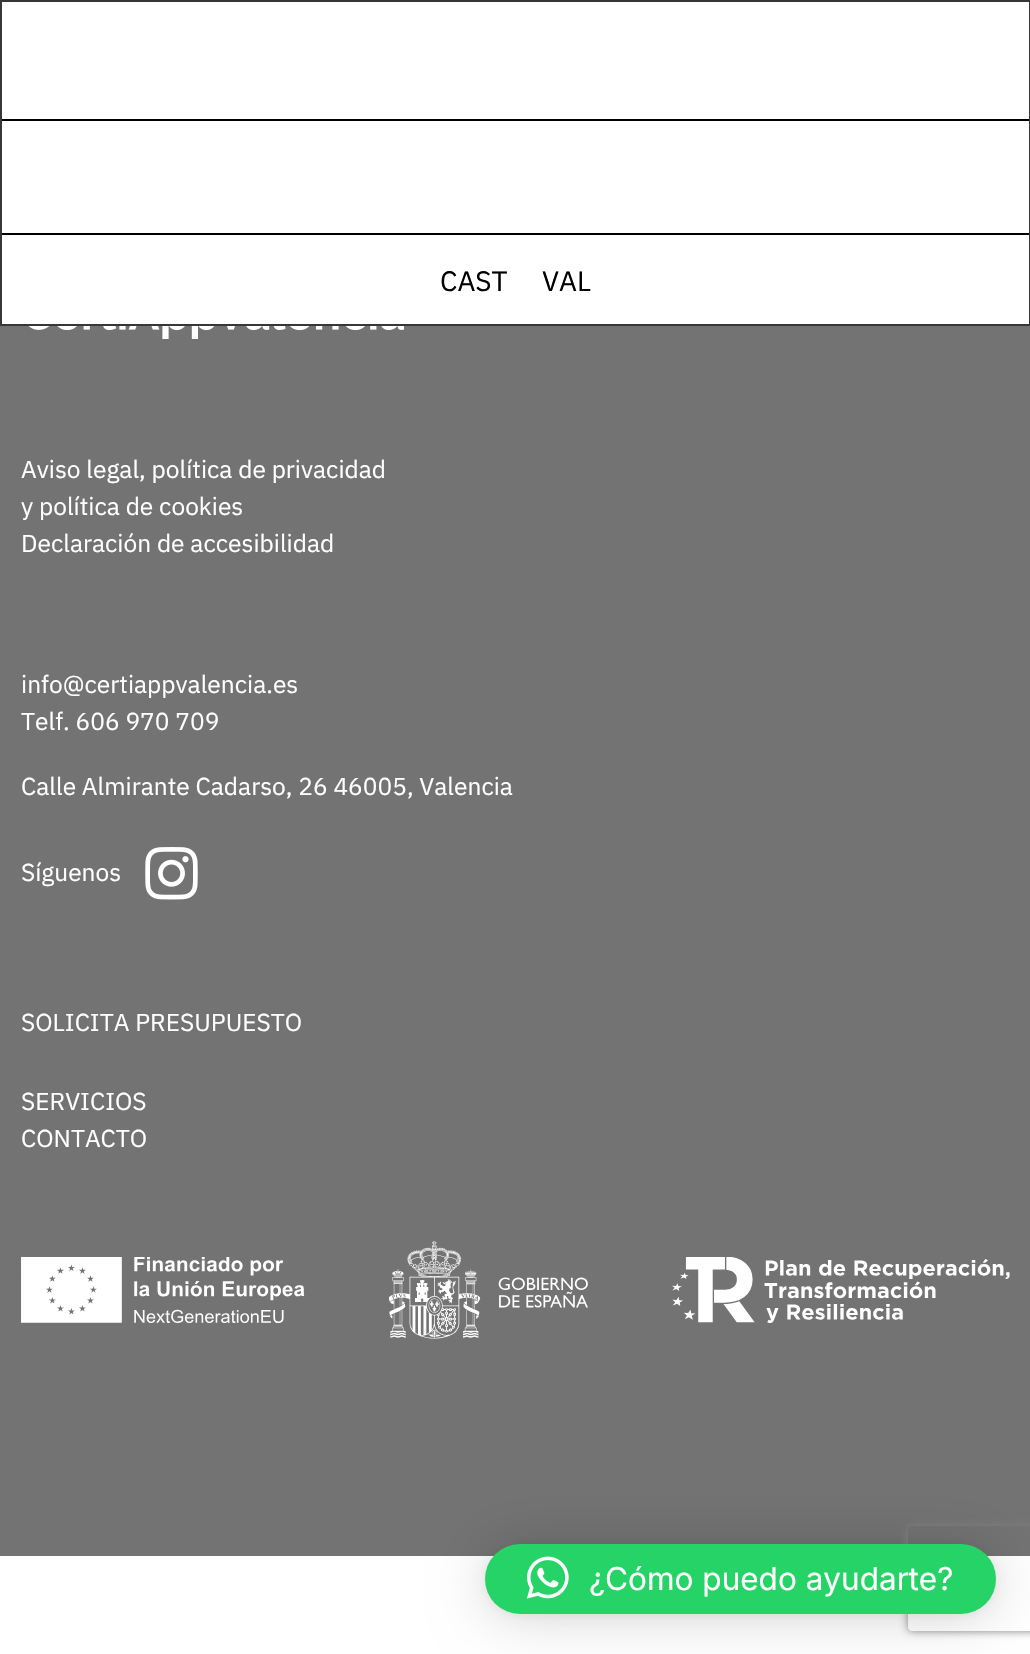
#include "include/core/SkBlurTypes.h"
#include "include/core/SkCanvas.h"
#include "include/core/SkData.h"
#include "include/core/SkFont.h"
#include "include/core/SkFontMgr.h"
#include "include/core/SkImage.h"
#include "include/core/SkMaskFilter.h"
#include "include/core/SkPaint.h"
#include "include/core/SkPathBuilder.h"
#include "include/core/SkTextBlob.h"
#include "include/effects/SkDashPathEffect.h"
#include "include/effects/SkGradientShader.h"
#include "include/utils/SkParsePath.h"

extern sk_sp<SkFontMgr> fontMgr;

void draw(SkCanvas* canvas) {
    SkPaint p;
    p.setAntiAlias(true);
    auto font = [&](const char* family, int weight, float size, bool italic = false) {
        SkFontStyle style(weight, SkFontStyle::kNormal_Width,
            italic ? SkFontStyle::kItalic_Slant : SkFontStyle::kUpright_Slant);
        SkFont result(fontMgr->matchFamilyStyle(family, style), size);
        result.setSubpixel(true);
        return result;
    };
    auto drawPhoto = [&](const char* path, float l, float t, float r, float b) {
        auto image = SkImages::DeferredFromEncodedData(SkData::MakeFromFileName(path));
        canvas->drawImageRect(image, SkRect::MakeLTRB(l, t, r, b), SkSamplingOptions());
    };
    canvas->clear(0xFFFFFFFF);
    p.setStyle(SkPaint::kStroke_Style);
    p.setStrokeWidth(2);
    p.setColor(0xFF373737);
    canvas->drawRect(SkRect::MakeLTRB(1, 1, 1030, 325), p);
    p.setStyle(SkPaint::kFill_Style);
    p.setColor(0xFF000000);
    canvas->drawRect(SkRect::MakeLTRB(2, 119, 1029, 121), p);
    canvas->drawRect(SkRect::MakeLTRB(2, 233, 1029, 235), p);
    auto font1 = font("Anuphan", 400, 28);
    canvas->drawString("CAST", 440, 291, font1, p);
    canvas->drawString("VAL", 542, 291, font1, p);
    p.setColor(0xFF737373);
    canvas->drawRect(SkRect::MakeLTRB(0, 326, 1030, 1556), p);
    drawPhoto("media/1.png", 28, 326, 404, 339);
    auto font2 = font("Anuphan", 400, 24.5f);
    p.setColor(0xFFFFFFFF);
    {
        const struct { const char* s; float x, y; } items[] = {
            {"Aviso legal, política de privacidad", 21, 478},
            {"y política de cookies", 21, 515},
            {"Declaración de accesibilidad", 21, 552},
            {"info@certiappvalencia.es", 21, 693},
            {"Telf. 606 970 709", 21, 730},
            {"Calle Almirante Cadarso, 26 46005, Valencia", 21, 795},
            {"Síguenos", 21, 881},
        };
        for (auto [s, x, y] : items) {
            canvas->drawString(s, x, y, font2, p);
        }
    }
    drawPhoto("media/2.png", 145, 847, 198, 900);
    {
        const struct { const char* s; float x, y; } items[] = {
            {"SOLICITA PRESUPUESTO", 21, 1031},
            {"SERVICIOS", 21, 1110},
            {"CONTACTO", 21, 1147},
        };
        for (auto [s, x, y] : items) {
            canvas->drawString(s, x, y, font2, p);
        }
    }
    drawPhoto("media/3.png", 21, 1257, 305, 1323);
    drawPhoto("media/4.png", 389, 1241, 588, 1339);
    drawPhoto("media/5.png", 672, 1257, 1010, 1323);
    p.setColor(0x29000000);
    p.setMaskFilter(SkMaskFilter::MakeBlur(kNormal_SkBlurStyle, 28));
    canvas->drawRoundRect(SkRect::MakeLTRB(485, 1547, 996, 1617), 35, 35, p);
    p.setMaskFilter(nullptr);
    p.setColor(0x0F000000);
    p.setMaskFilter(SkMaskFilter::MakeBlur(kNormal_SkBlurStyle, 5));
    canvas->drawRoundRect(SkRect::MakeLTRB(485, 1545, 996, 1615), 35, 35, p);
    p.setMaskFilter(nullptr);
    canvas->save();
    canvas->clipPath(SkPathBuilder(SkPathFillType::kEvenOdd).moveTo(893, 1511).lineTo(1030, 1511).lineTo(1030, 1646).lineTo(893, 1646).close().moveTo(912, 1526).lineTo(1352, 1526).cubicTo(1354, 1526, 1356, 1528, 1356, 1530).lineTo(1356, 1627).cubicTo(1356, 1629, 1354, 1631, 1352, 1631).lineTo(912, 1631).cubicTo(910, 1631, 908, 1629, 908, 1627).lineTo(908, 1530).cubicTo(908, 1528, 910, 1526, 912, 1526).close().detach(), true);
    p.setColor(0xFF808080);
    p.setMaskFilter(SkMaskFilter::MakeBlur(kNormal_SkBlurStyle, 4.5f));
    canvas->drawRoundRect(SkRect::MakeLTRB(908, 1526, 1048, 1631), 4, 4, p);
    p.setMaskFilter(nullptr);
    canvas->restore();
    p.setColor(0xFF25D366);
    canvas->drawRoundRect(SkRect::MakeLTRB(485, 1544, 996, 1614), 35, 35, p);
    drawPhoto("media/6.png", 526, 1556, 569, 1599);
    auto font3 = font("Inter", 400, 31.5f);
    p.setColor(0xFFFFFFFF);
    canvas->drawString("¿Cómo puedo ayudarte?", 589, 1590, font3, p);
}
